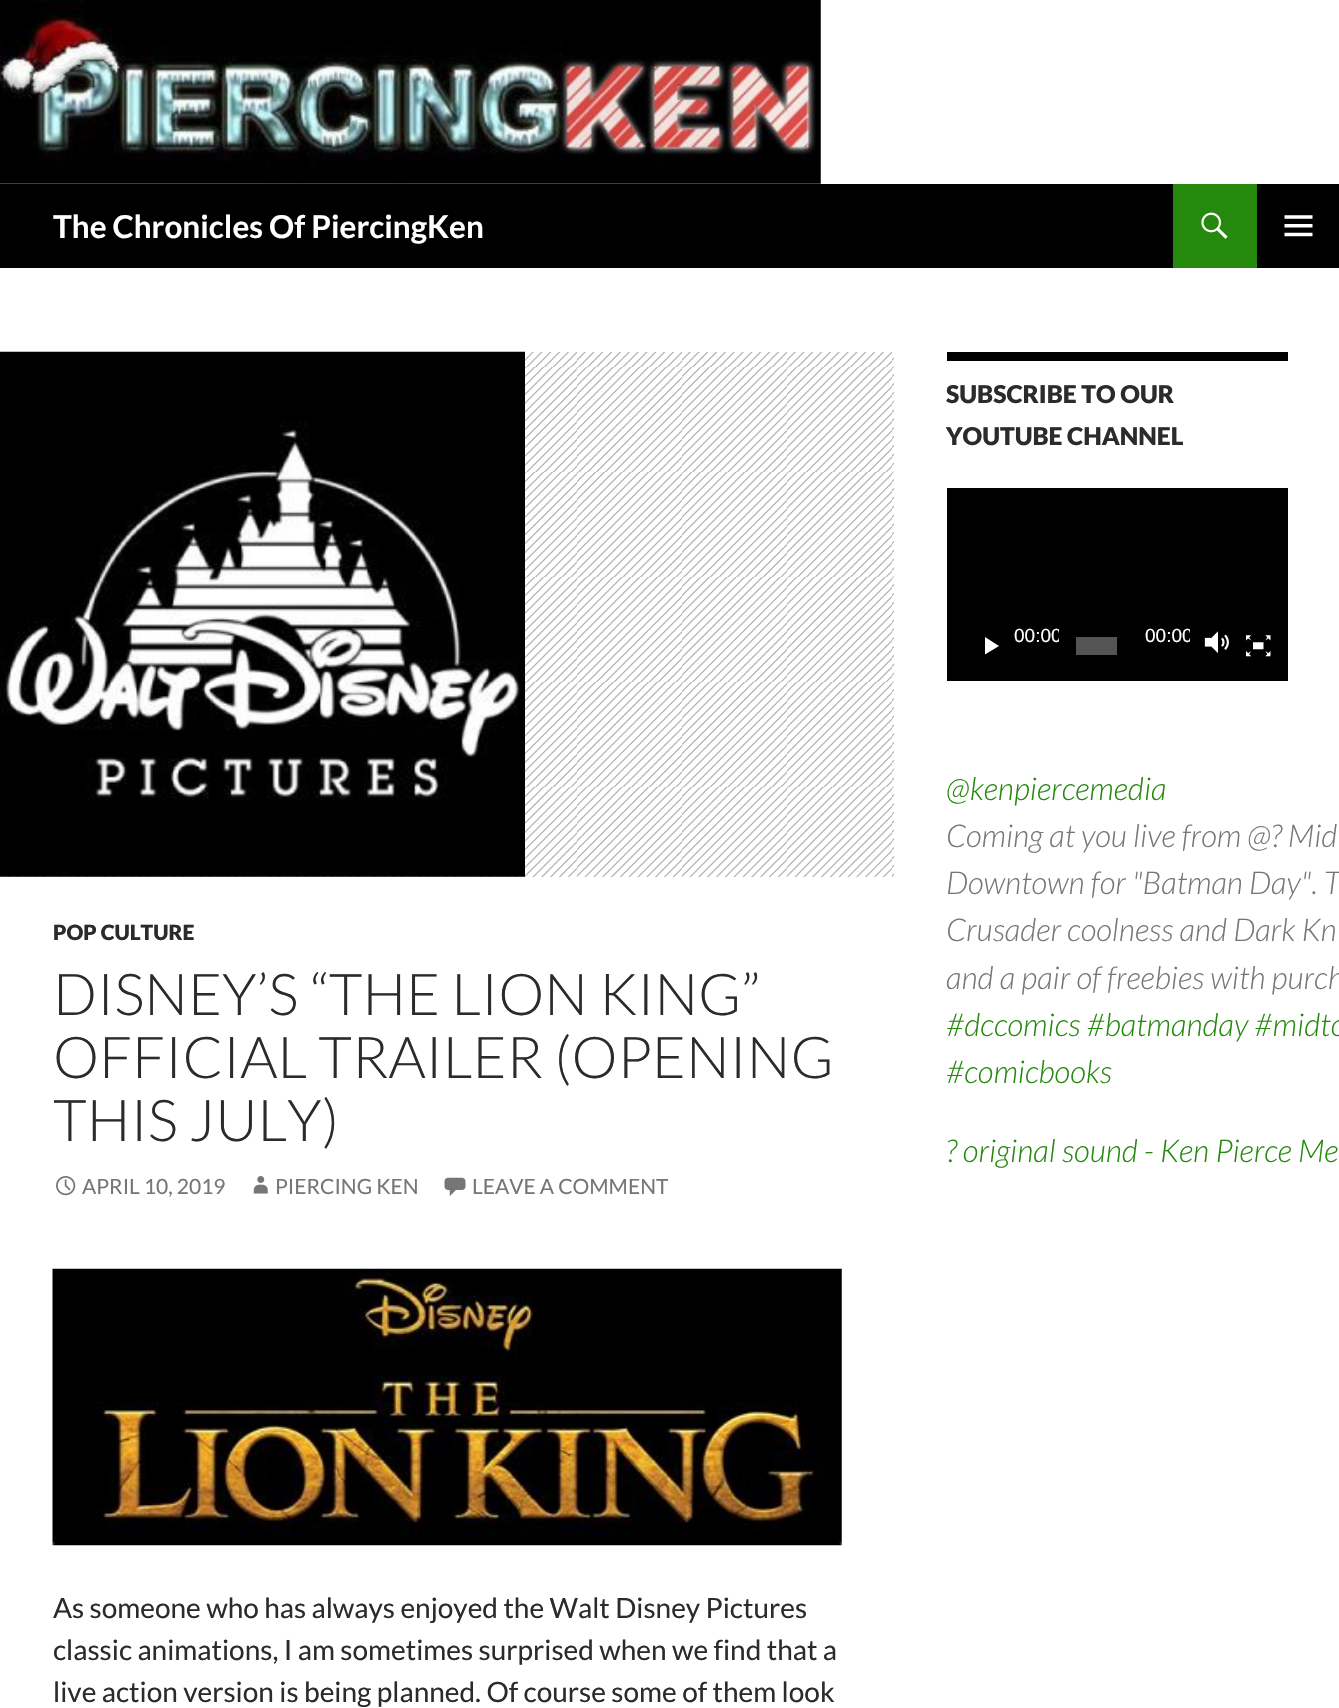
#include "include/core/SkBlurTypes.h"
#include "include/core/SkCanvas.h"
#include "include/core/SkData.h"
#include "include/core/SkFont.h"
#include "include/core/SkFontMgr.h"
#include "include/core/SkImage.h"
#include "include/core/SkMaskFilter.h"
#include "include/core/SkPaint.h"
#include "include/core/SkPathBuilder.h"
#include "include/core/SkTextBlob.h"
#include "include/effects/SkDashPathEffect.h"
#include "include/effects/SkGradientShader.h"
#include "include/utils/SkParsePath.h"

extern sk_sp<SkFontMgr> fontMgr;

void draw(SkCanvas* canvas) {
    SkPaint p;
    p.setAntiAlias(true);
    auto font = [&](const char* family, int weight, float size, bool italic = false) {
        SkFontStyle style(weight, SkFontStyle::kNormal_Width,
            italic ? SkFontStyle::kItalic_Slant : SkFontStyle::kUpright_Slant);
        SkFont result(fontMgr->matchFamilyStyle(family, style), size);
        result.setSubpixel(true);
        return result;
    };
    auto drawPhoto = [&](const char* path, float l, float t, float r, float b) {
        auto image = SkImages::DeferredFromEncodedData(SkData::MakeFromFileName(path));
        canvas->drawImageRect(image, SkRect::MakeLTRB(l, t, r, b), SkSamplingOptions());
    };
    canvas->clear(0xFFFFFFFF);
    drawPhoto("media/1.png", 0, 0, 821, 184);
    p.setColor(0xFF000000);
    canvas->drawRect(SkRect::MakeLTRB(0, 184, 1339, 268), p);
    canvas->save();
    canvas->clipRect(SkRect::MakeLTRB(53, 184, 483, 268));
    auto font1 = font("Lato", 700, 31.5f);
    p.setColor(0xFFFFFFFF);
    canvas->drawString("The Chronicles Of PiercingKen", 53, 238, font1, p);
    canvas->restore();
    p.setColor(0xFF24890D);
    canvas->drawRect(SkRect::MakeLTRB(1173, 184, 1257, 268), p);
    drawPhoto("media/2.png", 1201, 212, 1228, 239);
    drawPhoto("media/3.png", 1284, 215, 1313, 237);
    p.setColor(0xFF000000);
    canvas->drawRect(SkRect::MakeLTRB(947, 352, 1288, 361), p);
    auto font2 = font("Lato", 900, 24.5f);
    p.setColor(0xFF2B2B2B);
    canvas->drawString("SUBSCRIBE TO OUR", 946, 403, font2, p);
    canvas->drawString("YOUTUBE CHANNEL", 946, 445, font2, p);
    p.setColor(0xFF000000);
    canvas->drawRect(SkRect::MakeLTRB(947, 488, 1288, 681), p);
    p.setColor(0xFFFFFFFF);
    canvas->drawPath(SkPathBuilder().moveTo(985, 637).lineTo(999, 646).lineTo(985, 654.5f).close().detach(), p);
    canvas->save();
    canvas->clipRect(SkRect::MakeLTRB(1005, 611, 1059, 669));
    auto font3 = font("Liberation Sans", 400, 19);
    canvas->drawString("00:00", 1014, 642, font3, p);
    canvas->restore();
    p.setColor(0xFF545454);
    canvas->drawRect(SkRect::MakeLTRB(1076, 637, 1117, 655), p);
    canvas->save();
    canvas->clipRect(SkRect::MakeLTRB(1134, 611, 1190, 669));
    p.setColor(0xFFFFFFFF);
    canvas->drawString("00:00", 1145, 642, font3, p);
    canvas->restore();
    drawPhoto("media/4.png", 1204, 631, 1229, 653);
    drawPhoto("media/5.png", 1246, 635, 1271, 657);
    auto font4 = font("Lato", 300, 31.5f, true);
    p.setColor(0xFF24890D);
    canvas->drawString("@kenpiercemedia", 946, 800, font4, p);
    p.setColor(0xFF767676);
    {
        const struct { const char* s; float x, y; } items[] = {
            {"Coming at you live from @? Mid", 946, 847},
            {"Downtown for \"Batman Day\". T", 946, 894},
            {"Crusader coolness and Dark Kn", 946, 941},
            {"and a pair of freebies with purch", 946, 989},
        };
        for (auto [s, x, y] : items) {
            canvas->drawString(s, x, y, font4, p);
        }
    }
    p.setColor(0xFF24890D);
    {
        const struct { const char* s; float x, y; } items[] = {
            {"#dccomics #batmanday #midto", 946, 1036},
            {"#comicbooks", 946, 1083},
            {"? original sound - Ken Pierce Me", 946, 1162},
        };
        for (auto [s, x, y] : items) {
            canvas->drawString(s, x, y, font4, p);
        }
    }
    p.setColor(0xFFB2B2B2);
    canvas->drawRect(SkRect::MakeLTRB(0, 352, 894, 877), p);
    drawPhoto("media/6.png", 0, 352, 894, 877);
    drawPhoto("media/7.png", 0, 351, 525, 877);
    auto font5 = font("Lato", 900, 21);
    p.setColor(0xFF2B2B2B);
    canvas->drawString("POP CULTURE", 53, 940, font5, p);
    auto font6 = font("Lato", 300, 57.75f);
    {
        const struct { const char* s; float x, y; } items[] = {
            {"DISNEY’S “THE LION KING”", 53, 1015},
            {"OFFICIAL TRAILER (OPENING", 53, 1078},
            {"THIS JULY)", 53, 1141},
        };
        for (auto [s, x, y] : items) {
            canvas->drawString(s, x, y, font6, p);
        }
    }
    drawPhoto("media/8.png", 56, 1176, 76, 1196);
    auto font7 = font("Lato", 400, 21);
    p.setColor(0xFF767676);
    canvas->drawString("APRIL 10, 2019", 82, 1194, font7, p);
    drawPhoto("media/9.png", 253, 1176, 268, 1194);
    canvas->drawString("PIERCING KEN", 275, 1194, font7, p);
    drawPhoto("media/10.png", 444, 1177, 466, 1196);
    canvas->drawString("LEAVE A COMMENT", 472, 1194, font7, p);
    drawPhoto("media/11.png", 52, 1268, 842, 1546);
    auto font8 = font("Lato", 400, 28);
    p.setColor(0xFF2B2B2B);
    {
        const struct { const char* s; float x, y; } items[] = {
            {"As someone who has always enjoyed the Walt Disney Pictures", 53, 1618},
            {"classic animations, I am sometimes surprised when we find that a", 53, 1660},
            {"live action version is being planned. Of course some of them look", 53, 1702},
        };
        for (auto [s, x, y] : items) {
            canvas->drawString(s, x, y, font8, p);
        }
    }
}
